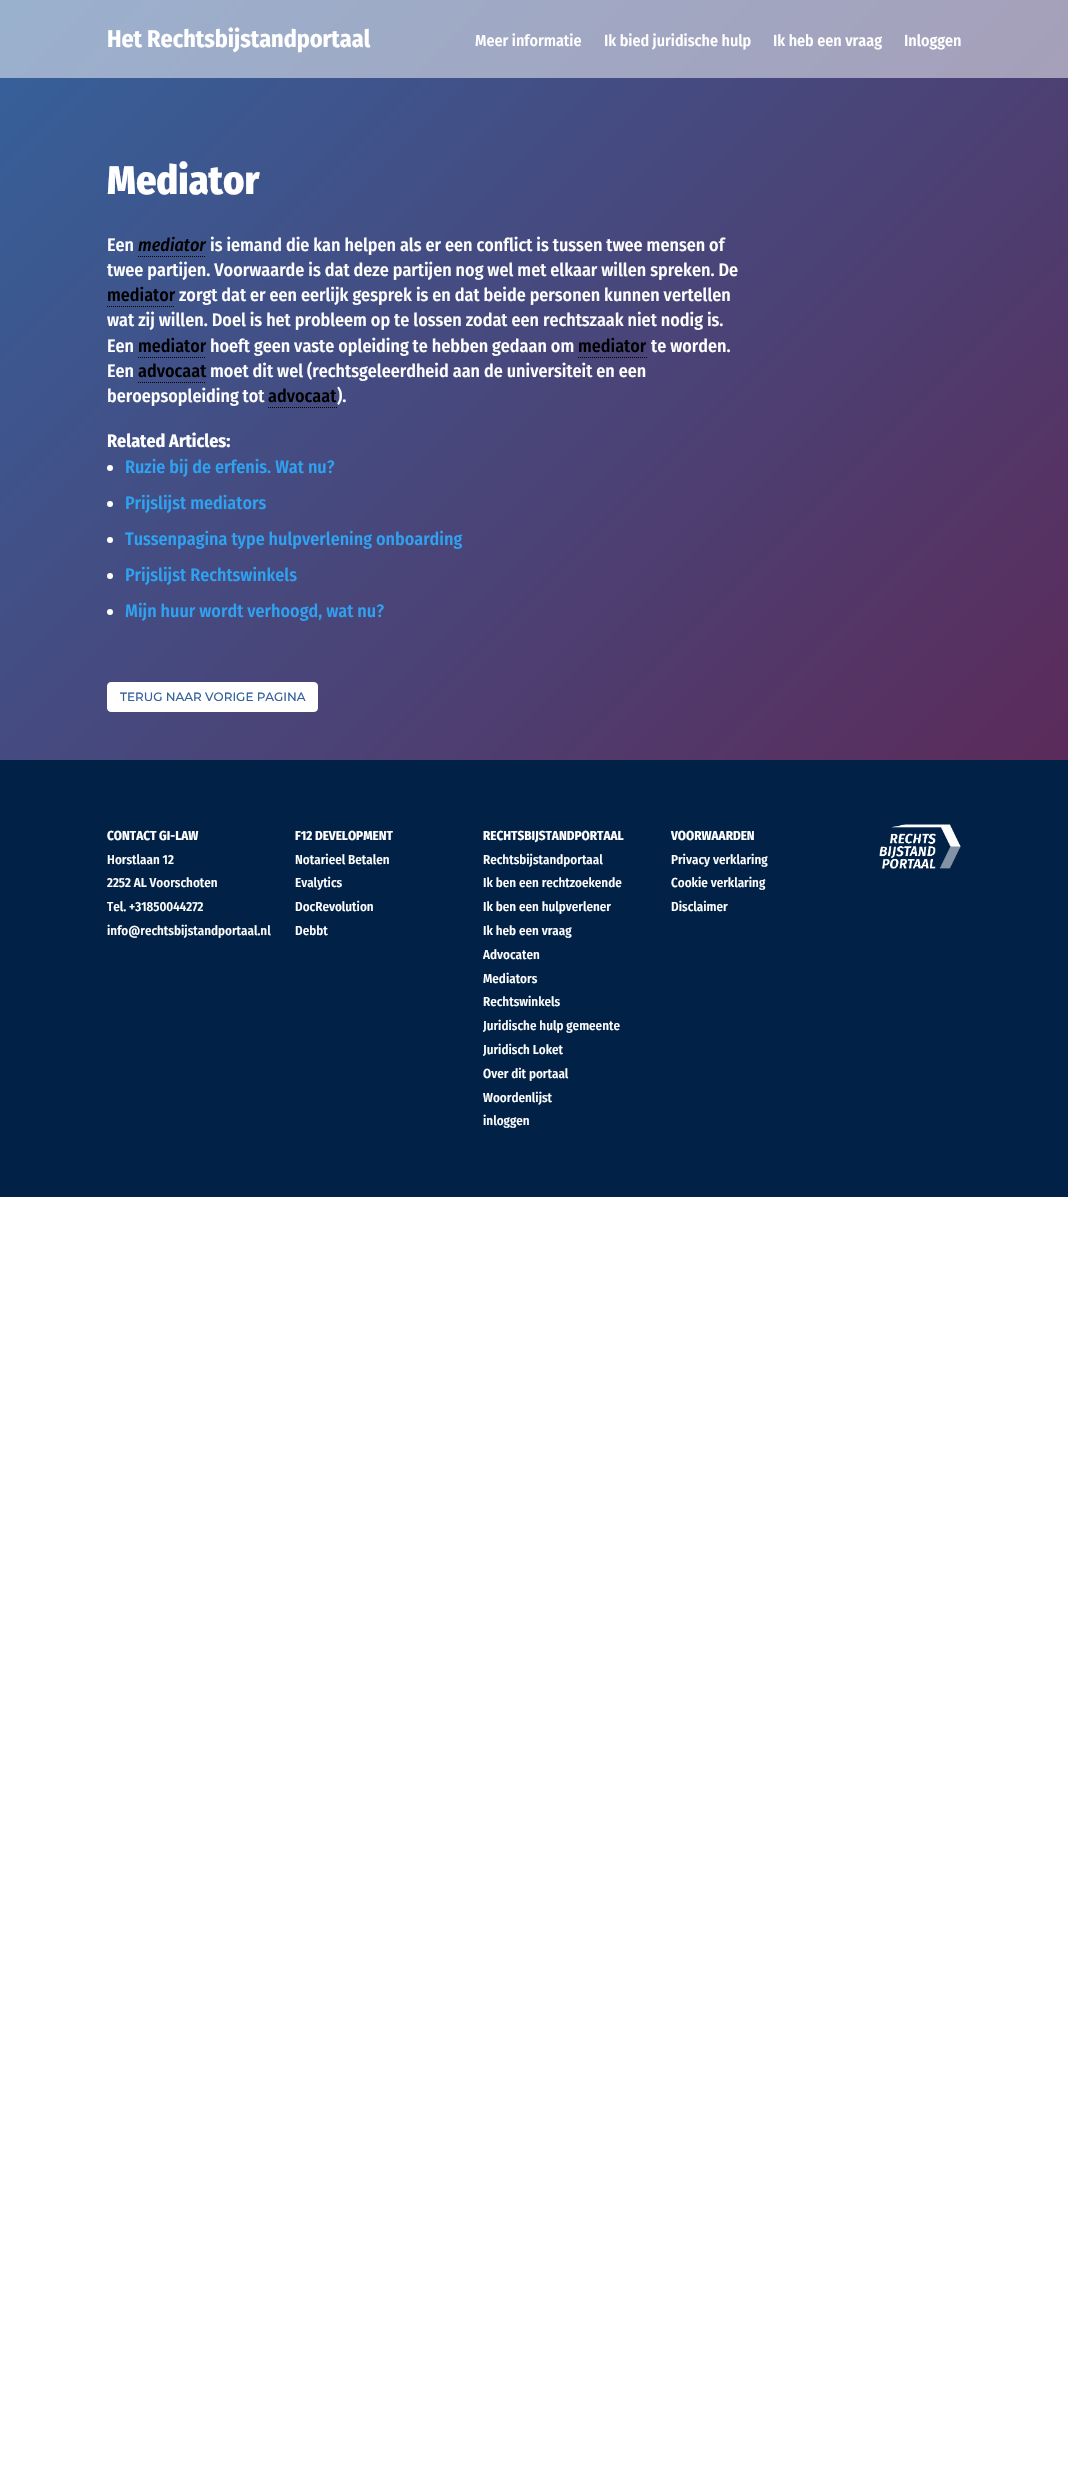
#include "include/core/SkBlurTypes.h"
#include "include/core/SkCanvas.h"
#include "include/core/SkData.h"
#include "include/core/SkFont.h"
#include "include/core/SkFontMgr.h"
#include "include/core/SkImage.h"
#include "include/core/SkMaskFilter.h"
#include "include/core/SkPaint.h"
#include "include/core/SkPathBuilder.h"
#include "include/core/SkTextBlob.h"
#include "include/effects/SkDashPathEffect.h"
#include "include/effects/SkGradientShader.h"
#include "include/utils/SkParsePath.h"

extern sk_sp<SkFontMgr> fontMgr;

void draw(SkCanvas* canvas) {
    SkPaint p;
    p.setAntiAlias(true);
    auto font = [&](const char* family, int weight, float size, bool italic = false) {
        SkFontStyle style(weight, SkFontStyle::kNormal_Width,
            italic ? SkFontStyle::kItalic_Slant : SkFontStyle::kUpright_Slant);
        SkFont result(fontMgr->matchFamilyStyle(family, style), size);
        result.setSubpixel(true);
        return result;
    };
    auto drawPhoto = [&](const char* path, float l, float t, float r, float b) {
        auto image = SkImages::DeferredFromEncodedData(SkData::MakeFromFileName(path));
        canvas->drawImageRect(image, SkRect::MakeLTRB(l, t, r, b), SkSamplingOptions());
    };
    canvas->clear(0xFFFFFFFF);
    {
        const SkColor colors[] = {0xFF9AB1CE, 0xFFAD95AD};
        const float stops[] = {0, 1};
        const SkPoint ends[] = {{77, -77}, {991, 837}};
        p.setShader(SkGradientShader::MakeLinear(ends, colors, stops, 2, SkTileMode::kClamp));
        p.setAlpha(255);
    }
    canvas->drawRect(SkRect::MakeLTRB(0, 0, 1068, 78), p);
    auto font1 = font("Fira Sans Condensed", 700, 24);
    p.setShader(nullptr);
    p.setColor(0xFFFFFFFF);
    canvas->drawString("Het Rechtsbijstandportaal", 107, 47, font1, p);
    auto font2 = font("Fira Sans Condensed", 500, 16);
    {
        const struct { const char* s; float x, y; } items[] = {
            {"Meer informatie", 475, 46},
            {"Ik bied juridische hulp", 604, 46},
            {"Ik heb een vraag", 773, 46},
            {"Inloggen", 904, 46},
        };
        for (auto [s, x, y] : items) {
            canvas->drawString(s, x, y, font2, p);
        }
    }
    {
        const SkColor colors[] = {0xFF35629C, 0xFF5B2B5A};
        const float stops[] = {0, 1};
        const SkPoint ends[] = {{77, -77}, {991, 837}};
        p.setShader(SkGradientShader::MakeLinear(ends, colors, stops, 2, SkTileMode::kClamp));
        p.setAlpha(255);
    }
    canvas->drawRect(SkRect::MakeLTRB(0, 78, 1068, 760), p);
    auto font3 = font("Fira Sans Condensed", 800, 40);
    p.setShader(nullptr);
    p.setColor(0xFFFFFFFF);
    canvas->drawString("Mediator", 107, 194, font3, p);
    auto font4 = font("Fira Sans Condensed", 500, 18);
    canvas->drawString("Een", 107, 251, font4, p);
    auto font5 = font("Fira Sans Condensed", 500, 18, true);
    p.setColor(0xFF000000);
    canvas->drawString("mediator", 138, 251, font5, p);
    p.setStyle(SkPaint::kStroke_Style);
    p.setStrokeWidth(1);
    p.setPathEffect(SkDashPathEffect::Make({{1, 1}}, 0));
    canvas->drawPath(SkPathBuilder().moveTo(138, 256.5f).lineTo(206, 256.5f).detach(), p);
    p.setPathEffect(nullptr);
    p.setStyle(SkPaint::kFill_Style);
    p.setColor(0xFFFFFFFF);
    canvas->drawString("is iemand die kan helpen als er een conflict is tussen twee mensen of", 210, 251, font4, p);
    canvas->drawString("twee partijen. Voorwaarde is dat deze partijen nog wel met elkaar willen spreken. De", 107, 276, font4, p);
    p.setColor(0xFF000000);
    canvas->drawString("mediator", 107, 301, font4, p);
    p.setStyle(SkPaint::kStroke_Style);
    p.setPathEffect(SkDashPathEffect::Make({{1, 1}}, 0));
    canvas->drawPath(SkPathBuilder().moveTo(107, 306.5f).lineTo(175, 306.5f).detach(), p);
    p.setPathEffect(nullptr);
    p.setStyle(SkPaint::kFill_Style);
    p.setColor(0xFFFFFFFF);
    {
        const struct { const char* s; float x, y; } items[] = {
            {"zorgt dat er een eerlijk gesprek is en dat beide personen kunnen vertellen", 179, 301},
            {"wat zij willen. Doel is het probleem op te lossen zodat een rechtszaak niet nodig is.", 107, 326},
            {"Een", 107, 352},
        };
        for (auto [s, x, y] : items) {
            canvas->drawString(s, x, y, font4, p);
        }
    }
    p.setColor(0xFF000000);
    canvas->drawString("mediator", 138, 352, font4, p);
    p.setStyle(SkPaint::kStroke_Style);
    p.setPathEffect(SkDashPathEffect::Make({{1, 1}}, 0));
    canvas->drawPath(SkPathBuilder().moveTo(138, 357.5f).lineTo(206, 357.5f).detach(), p);
    p.setPathEffect(nullptr);
    p.setStyle(SkPaint::kFill_Style);
    p.setColor(0xFFFFFFFF);
    canvas->drawString("hoeft geen vaste opleiding te hebben gedaan om", 210, 352, font4, p);
    p.setColor(0xFF000000);
    canvas->drawString("mediator", 578, 352, font4, p);
    p.setStyle(SkPaint::kStroke_Style);
    p.setPathEffect(SkDashPathEffect::Make({{1, 1}}, 0));
    canvas->drawPath(SkPathBuilder().moveTo(578, 357.5f).lineTo(647, 357.5f).detach(), p);
    p.setPathEffect(nullptr);
    p.setStyle(SkPaint::kFill_Style);
    p.setColor(0xFFFFFFFF);
    canvas->drawString("te worden.", 651, 352, font4, p);
    canvas->drawString("Een", 107, 377, font4, p);
    p.setColor(0xFF000000);
    canvas->drawString("advocaat", 138, 377, font4, p);
    p.setStyle(SkPaint::kStroke_Style);
    p.setPathEffect(SkDashPathEffect::Make({{1, 1}}, 0));
    canvas->drawPath(SkPathBuilder().moveTo(138, 382.5f).lineTo(206, 382.5f).detach(), p);
    p.setPathEffect(nullptr);
    p.setStyle(SkPaint::kFill_Style);
    p.setColor(0xFFFFFFFF);
    canvas->drawString("moet dit wel (rechtsgeleerdheid aan de universiteit en een", 210, 377, font4, p);
    canvas->drawString("beroepsopleiding tot", 107, 402, font4, p);
    p.setColor(0xFF000000);
    canvas->drawString("advocaat", 268, 402, font4, p);
    p.setStyle(SkPaint::kStroke_Style);
    p.setPathEffect(SkDashPathEffect::Make({{1, 1}}, 0));
    canvas->drawPath(SkPathBuilder().moveTo(268, 407.5f).lineTo(337, 407.5f).detach(), p);
    p.setPathEffect(nullptr);
    p.setStyle(SkPaint::kFill_Style);
    p.setColor(0xFFFFFFFF);
    canvas->drawString(").", 337, 402, font4, p);
    auto font6 = font("Fira Sans Condensed", 700, 18);
    canvas->drawString("Related Articles:", 107, 447, font6, p);
    canvas->drawCircle(110, 468, 3, p);
    p.setColor(0xFF2EA3F2);
    canvas->drawString("Ruzie bij de erfenis. Wat nu?", 125, 473, font4, p);
    p.setColor(0xFFFFFFFF);
    canvas->drawCircle(110, 504, 3, p);
    p.setColor(0xFF2EA3F2);
    canvas->drawString("Prijslijst mediators", 125, 509, font4, p);
    p.setColor(0xFFFFFFFF);
    canvas->drawCircle(110, 540, 3, p);
    p.setColor(0xFF2EA3F2);
    canvas->drawString("Tussenpagina type hulpverlening onboarding", 125, 545, font4, p);
    p.setColor(0xFFFFFFFF);
    canvas->drawCircle(110, 576, 3, p);
    p.setColor(0xFF2EA3F2);
    canvas->drawString("Prijslijst Rechtswinkels", 125, 581, font4, p);
    p.setColor(0xFFFFFFFF);
    canvas->drawCircle(110, 612, 3, p);
    p.setColor(0xFF2EA3F2);
    canvas->drawString("Mijn huur wordt verhoogd, wat nu?", 125, 617, font4, p);
    p.setColor(0xFFFFFFFF);
    canvas->drawRoundRect(SkRect::MakeLTRB(107.5f, 682.5f, 317.5f, 711.5f), 3.5f, 3.5f, p);
    p.setStyle(SkPaint::kStroke_Style);
    canvas->drawRoundRect(SkRect::MakeLTRB(107.5f, 682.5f, 317.5f, 711.5f), 3.5f, 3.5f, p);
    auto font7 = font("Montserrat", 100, 12);
    p.setStyle(SkPaint::kFill_Style);
    p.setColor(0xFF35629C);
    canvas->drawString("TERUG NAAR VORIGE PAGINA", 120, 701, font7, p);
    p.setColor(0xFF022147);
    canvas->drawRect(SkRect::MakeLTRB(0, 760, 1068, 1197), p);
    auto font8 = font("Fira Sans Condensed", 700, 13);
    p.setColor(0xFFFFFFFF);
    canvas->drawString("CONTACT GI-LAW", 107, 840, font8, p);
    auto font9 = font("Fira Sans Condensed", 500, 13);
    {
        const struct { const char* s; float x, y; } items[] = {
            {"Horstlaan 12", 107, 864},
            {"2252 AL Voorschoten", 107, 887},
            {"Tel. +31850044272", 107, 911},
            {"info@rechtsbijstandportaal.nl", 107, 935},
        };
        for (auto [s, x, y] : items) {
            canvas->drawString(s, x, y, font9, p);
        }
    }
    canvas->drawString("F12 DEVELOPMENT", 295, 840, font8, p);
    {
        const struct { const char* s; float x, y; } items[] = {
            {"Notarieel Betalen", 295, 864},
            {"Evalytics", 295, 887},
            {"DocRevolution", 295, 911},
            {"Debbt", 295, 935},
        };
        for (auto [s, x, y] : items) {
            canvas->drawString(s, x, y, font9, p);
        }
    }
    canvas->drawString("RECHTSBIJSTANDPORTAAL", 483, 840, font8, p);
    {
        const struct { const char* s; float x, y; } items[] = {
            {"Rechtsbijstandportaal", 483, 864},
            {"Ik ben een rechtzoekende", 483, 887},
            {"Ik ben een hulpverlener", 483, 911},
            {"Ik heb een vraag", 483, 935},
            {"Advocaten", 483, 959},
            {"Mediators", 483, 983},
            {"Rechtswinkels", 483, 1006},
            {"Juridische hulp gemeente", 483, 1030},
            {"Juridisch Loket", 483, 1054},
            {"Over dit portaal", 483, 1078},
            {"Woordenlijst", 483, 1102},
            {"inloggen", 483, 1125},
        };
        for (auto [s, x, y] : items) {
            canvas->drawString(s, x, y, font9, p);
        }
    }
    canvas->drawString("VOORWAARDEN", 671, 840, font8, p);
    {
        const struct { const char* s; float x, y; } items[] = {
            {"Privacy verklaring", 671, 864},
            {"Cookie verklaring", 671, 887},
            {"Disclaimer", 671, 911},
        };
        for (auto [s, x, y] : items) {
            canvas->drawString(s, x, y, font9, p);
        }
    }
    drawPhoto("media/1.png", 879, 824, 961, 869);
}
